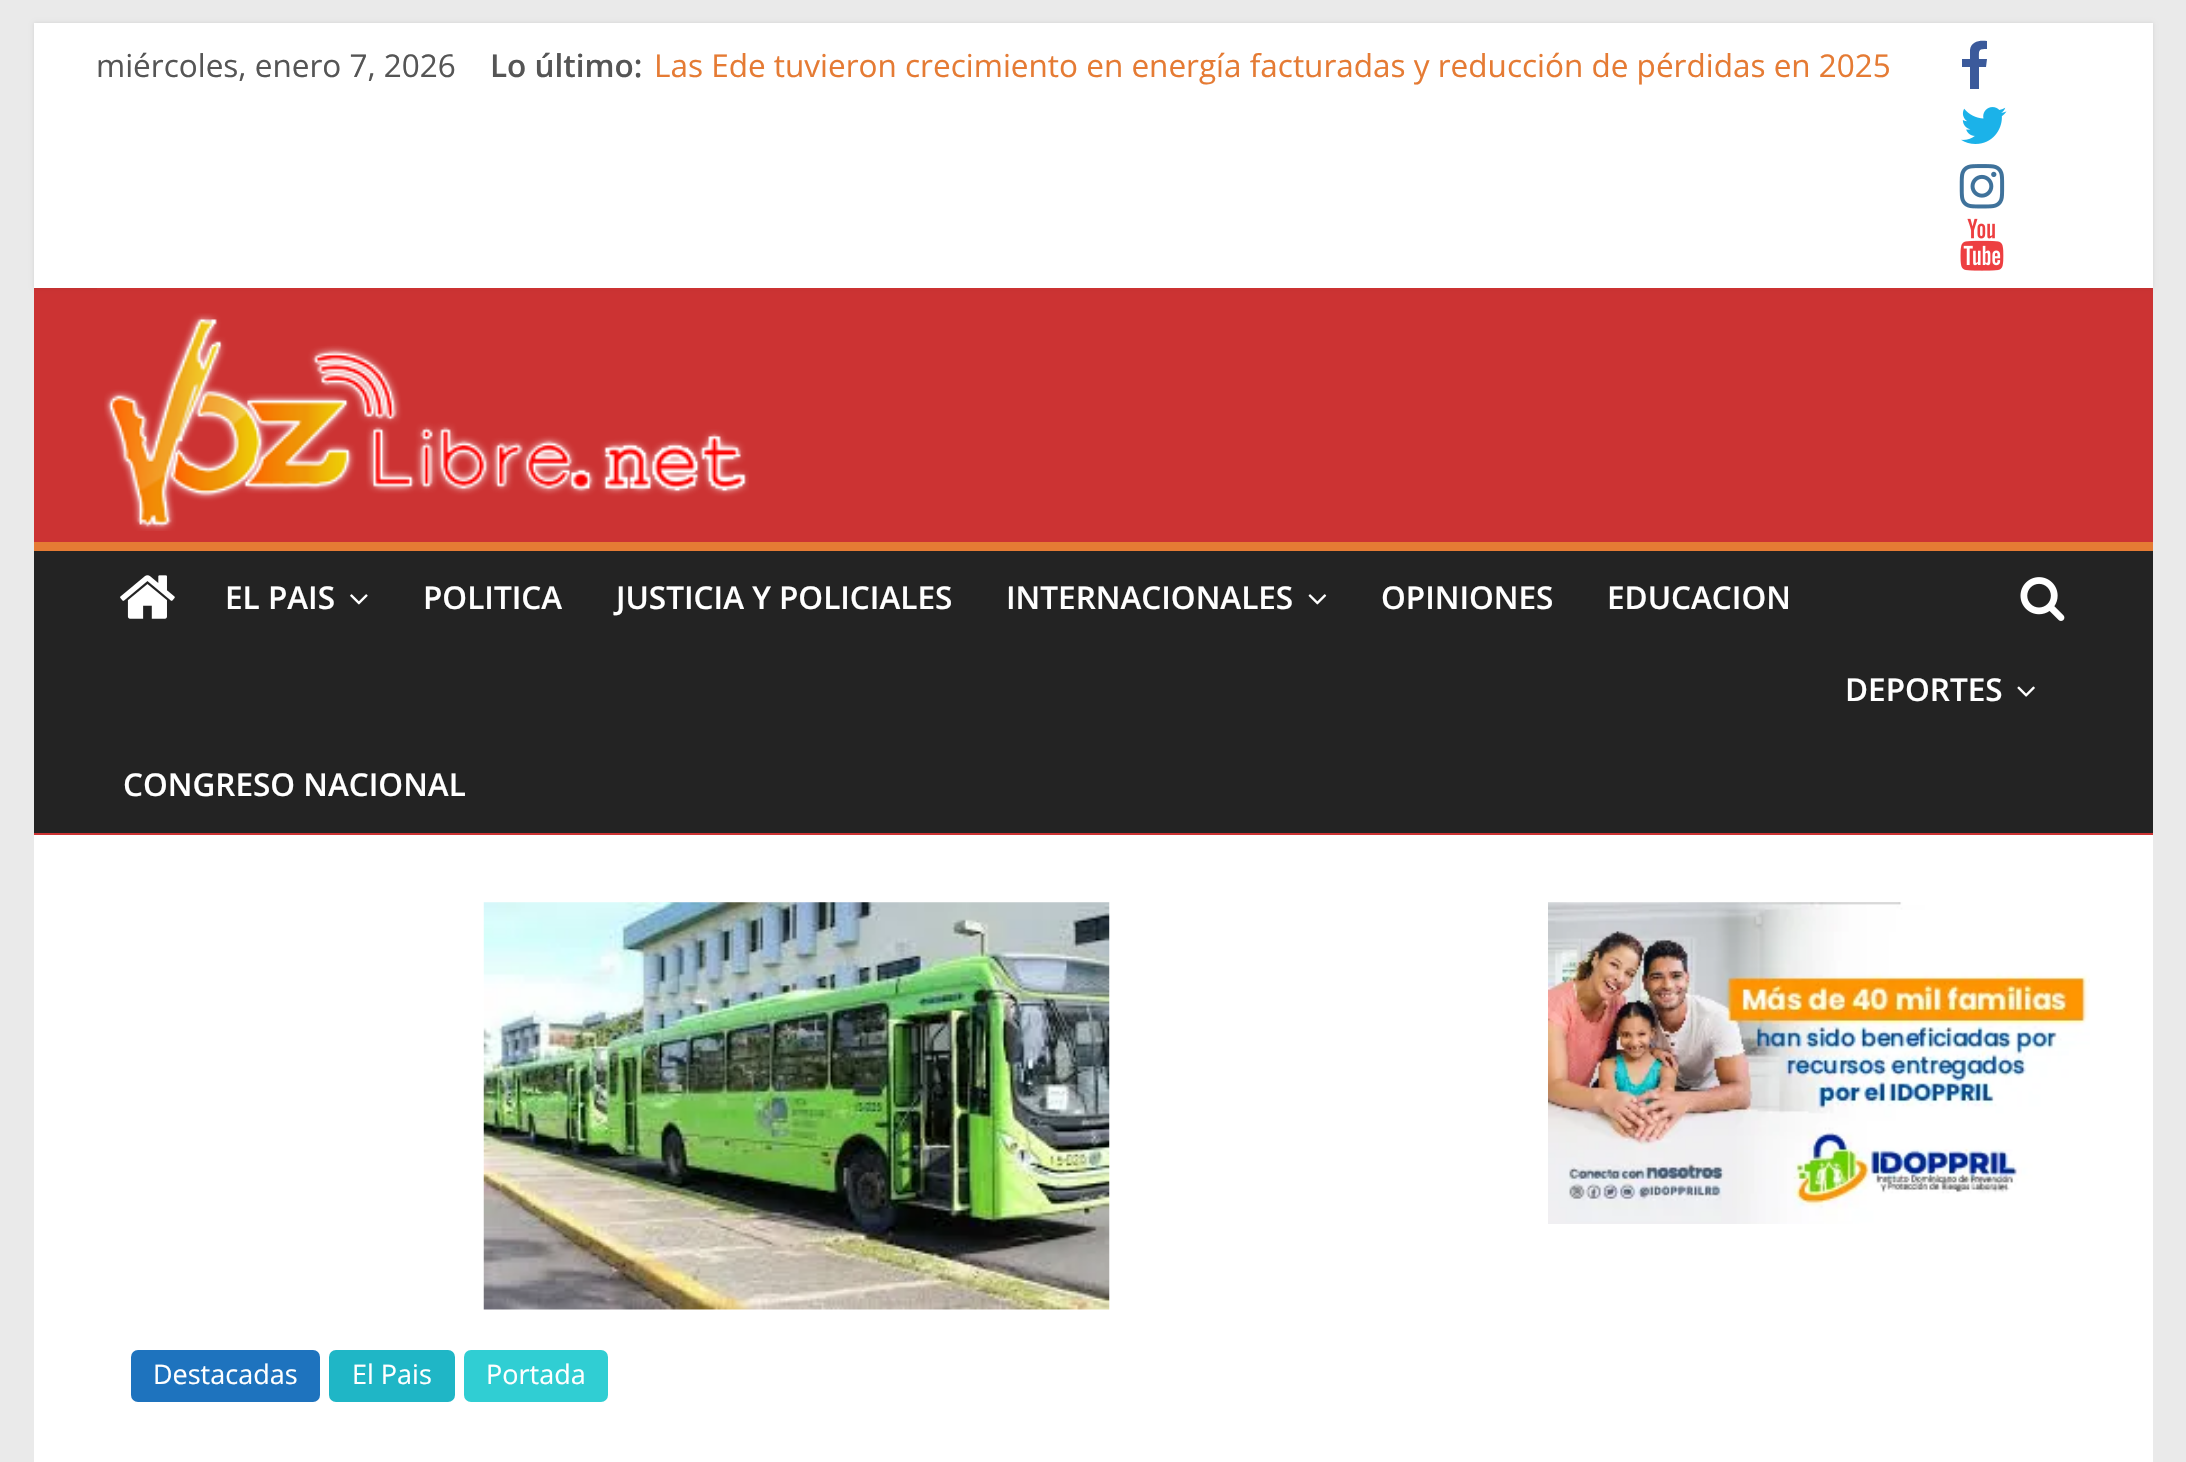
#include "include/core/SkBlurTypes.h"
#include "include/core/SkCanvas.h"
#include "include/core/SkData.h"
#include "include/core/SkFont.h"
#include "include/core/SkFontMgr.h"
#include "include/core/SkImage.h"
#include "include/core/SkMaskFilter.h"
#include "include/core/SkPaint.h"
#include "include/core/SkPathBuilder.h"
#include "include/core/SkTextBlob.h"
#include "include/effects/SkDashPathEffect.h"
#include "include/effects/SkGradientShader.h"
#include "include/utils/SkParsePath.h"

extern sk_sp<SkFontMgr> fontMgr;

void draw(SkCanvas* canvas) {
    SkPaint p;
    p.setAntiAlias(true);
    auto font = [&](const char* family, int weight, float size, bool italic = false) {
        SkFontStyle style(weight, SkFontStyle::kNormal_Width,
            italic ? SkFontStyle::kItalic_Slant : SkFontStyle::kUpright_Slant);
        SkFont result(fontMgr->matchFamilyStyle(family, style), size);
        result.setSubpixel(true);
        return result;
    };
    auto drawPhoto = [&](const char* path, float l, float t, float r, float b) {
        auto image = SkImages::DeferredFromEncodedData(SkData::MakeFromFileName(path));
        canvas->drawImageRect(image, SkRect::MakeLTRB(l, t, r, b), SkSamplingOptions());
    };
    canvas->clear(0xFFEAEAEA);
    p.setColor(0xFFCC3333);
    canvas->drawRect(SkRect::MakeLTRB(34, 288, 2153, 835), p);
    p.setColor(0x1A000000);
    p.setMaskFilter(SkMaskFilter::MakeBlur(kNormal_SkBlurStyle, 2));
    canvas->drawRect(SkRect::MakeLTRB(34, 23, 2153, 288), p);
    p.setMaskFilter(nullptr);
    p.setColor(0xFFFFFFFF);
    canvas->drawRect(SkRect::MakeLTRB(34, 23, 2153, 288), p);
    auto font1 = font("Open Sans", 400, 31.5f);
    p.setColor(0xFF555555);
    canvas->drawString("miércoles, enero 7, 2026", 96, 77, font1, p);
    auto font2 = font("Open Sans", 600, 31.5f);
    canvas->drawString("Lo último:", 490, 77, font2, p);
    p.setColor(0xFFE57B34);
    canvas->drawString("Las Ede tuvieron crecimiento en energía facturadas y reducción de pérdidas en 2025", 654, 77, font1, p);
    p.setColor(0xFF3B5A9B);
    canvas->drawPath(SkPathBuilder().moveTo(1987, 41).cubicTo(1980, 40, 1971, 41, 1970, 50).lineTo(1970, 59).lineTo(1962, 59).lineTo(1962, 67).lineTo(1970, 67).lineTo(1970, 89).lineTo(1979, 89).lineTo(1979, 67).lineTo(1986, 67).lineTo(1987, 59).lineTo(1979, 59).cubicTo(1979, 50, 1978, 49, 1987, 49).close().detach(), p);
    drawPhoto("media/1.png", 1961, 107, 2007, 144);
    drawPhoto("media/2.png", 1959, 164, 2005, 209);
    drawPhoto("media/3.png", 1960, 218, 2004, 271);
    p.setColor(0xFFCC3333);
    canvas->drawRect(SkRect::MakeLTRB(97, 288, 2090, 290), p);
    drawPhoto("media/4.png", 104, 313, 749, 531);
    p.setColor(0xFF232323);
    canvas->drawRect(SkRect::MakeLTRB(34, 551, 2153, 833), p);
    p.setColor(0xFFE57B34);
    canvas->drawRect(SkRect::MakeLTRB(34, 542, 2153, 551), p);
    drawPhoto("media/5.png", 120, 575, 175, 619);
    drawPhoto("media/6.png", 2020, 577, 2065, 621);
    p.setColor(0xFFFFFFFF);
    canvas->drawString("EL PAIS", 225, 609, font2, p);
    drawPhoto("media/7.png", 350, 594, 368, 605);
    {
        const struct { const char* s; float x, y; } items[] = {
            {"POLITICA", 423, 609},
            {"JUSTICIA Y POLICIALES", 616, 609},
            {"INTERNACIONALES", 1006, 609},
        };
        for (auto [s, x, y] : items) {
            canvas->drawString(s, x, y, font2, p);
        }
    }
    drawPhoto("media/8.png", 1308, 594, 1327, 605);
    {
        const struct { const char* s; float x, y; } items[] = {
            {"OPINIONES", 1381, 609},
            {"EDUCACION", 1607, 609},
            {"DEPORTES", 1845, 701},
        };
        for (auto [s, x, y] : items) {
            canvas->drawString(s, x, y, font2, p);
        }
    }
    drawPhoto("media/9.png", 2017, 686, 2035, 697);
    canvas->drawString("CONGRESO NACIONAL", 123, 796, font2, p);
    canvas->drawRect(SkRect::MakeLTRB(34, 835, 2153, 1462), p);
    drawPhoto("media/10.png", 1548, 902, 2090, 1224);
    drawPhoto("media/11.png", 483, 902, 1110, 1310);
    p.setColor(0xFF1E73BE);
    canvas->drawRoundRect(SkRect::MakeLTRB(131, 1350, 320, 1402), 7, 7, p);
    auto font3 = font("Open Sans", 400, 27);
    p.setColor(0xFFFFFFFF);
    canvas->drawString("Destacadas", 153, 1384, font3, p);
    p.setColor(0xFF1FB6C6);
    canvas->drawRoundRect(SkRect::MakeLTRB(329, 1350, 455, 1402), 7, 7, p);
    p.setColor(0xFFFFFFFF);
    canvas->drawString("El Pais", 352, 1384, font3, p);
    p.setColor(0xFF30CED3);
    canvas->drawRoundRect(SkRect::MakeLTRB(464, 1350, 608, 1402), 7, 7, p);
    p.setColor(0xFFFFFFFF);
    canvas->drawString("Portada", 486, 1384, font3, p);
}
